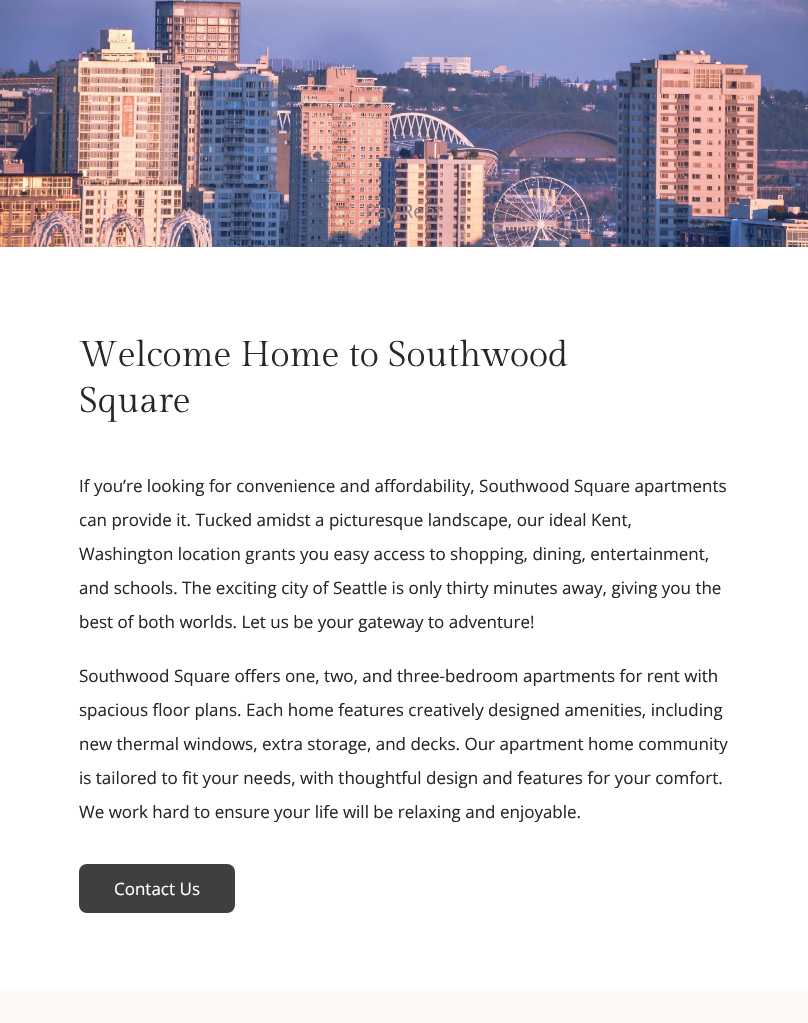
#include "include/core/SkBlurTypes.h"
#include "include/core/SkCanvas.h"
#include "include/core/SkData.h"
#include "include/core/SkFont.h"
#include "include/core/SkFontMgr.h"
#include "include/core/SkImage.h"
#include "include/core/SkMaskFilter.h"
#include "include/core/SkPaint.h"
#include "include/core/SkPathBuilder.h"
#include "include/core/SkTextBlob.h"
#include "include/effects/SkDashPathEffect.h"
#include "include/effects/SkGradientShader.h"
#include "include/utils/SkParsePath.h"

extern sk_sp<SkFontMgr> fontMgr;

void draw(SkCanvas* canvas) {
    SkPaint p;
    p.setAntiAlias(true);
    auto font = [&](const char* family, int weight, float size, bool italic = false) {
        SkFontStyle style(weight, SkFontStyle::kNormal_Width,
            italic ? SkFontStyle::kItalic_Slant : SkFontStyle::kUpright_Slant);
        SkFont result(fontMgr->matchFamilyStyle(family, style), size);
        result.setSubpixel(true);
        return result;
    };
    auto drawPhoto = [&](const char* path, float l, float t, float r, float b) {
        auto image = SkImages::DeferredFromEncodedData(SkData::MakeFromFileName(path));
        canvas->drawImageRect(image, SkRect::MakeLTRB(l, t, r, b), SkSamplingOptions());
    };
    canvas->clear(0xFFFCF9F7);
    drawPhoto("media/1.png", 0, 0, 808, 247);
    auto font1 = font("Open Sans", 400, 19);
    p.setColor(0xFF9D8086);
    canvas->drawString("Pay Rent", 365, 218, font1, p);
    p.setColor(0xFFFFFFFF);
    canvas->drawRect(SkRect::MakeLTRB(0, 247, 808, 989), p);
    auto font2 = font("Gilda Display", 400, 35.75f);
    p.setColor(0xFF272727);
    canvas->drawString("Welcome Home to Southwood", 79, 366, font2, p);
    canvas->drawString("Square", 79, 412, font2, p);
    auto font3 = font("Open Sans", 400, 17);
    {
        const struct { const char* s; float x, y; } items[] = {
            {"If you’re looking for convenience and affordability, Southwood Square apartments", 79, 492},
            {"can provide it. Tucked amidst a picturesque landscape, our ideal Kent,", 79, 526},
            {"Washington location grants you easy access to shopping, dining, entertainment,", 79, 560},
            {"and schools. The exciting city of Seattle is only thirty minutes away, giving you the", 79, 594},
            {"best of both worlds. Let us be your gateway to adventure!", 79, 628},
            {"Southwood Square offers one, two, and three-bedroom apartments for rent with", 79, 682},
            {"spacious floor plans. Each home features creatively designed amenities, including", 79, 716},
            {"new thermal windows, extra storage, and decks. Our apartment home community", 79, 750},
            {"is tailored to fit your needs, with thoughtful design and features for your comfort.", 79, 784},
            {"We work hard to ensure your life will be relaxing and enjoyable.", 79, 818},
        };
        for (auto [s, x, y] : items) {
            canvas->drawString(s, x, y, font3, p);
        }
    }
    p.setColor(0xFF403E3F);
    canvas->drawRoundRect(SkRect::MakeLTRB(79, 864, 235, 913), 8, 8, p);
    p.setColor(0xFFFFFFFF);
    canvas->drawString("Contact Us", 114, 895, font3, p);
}
